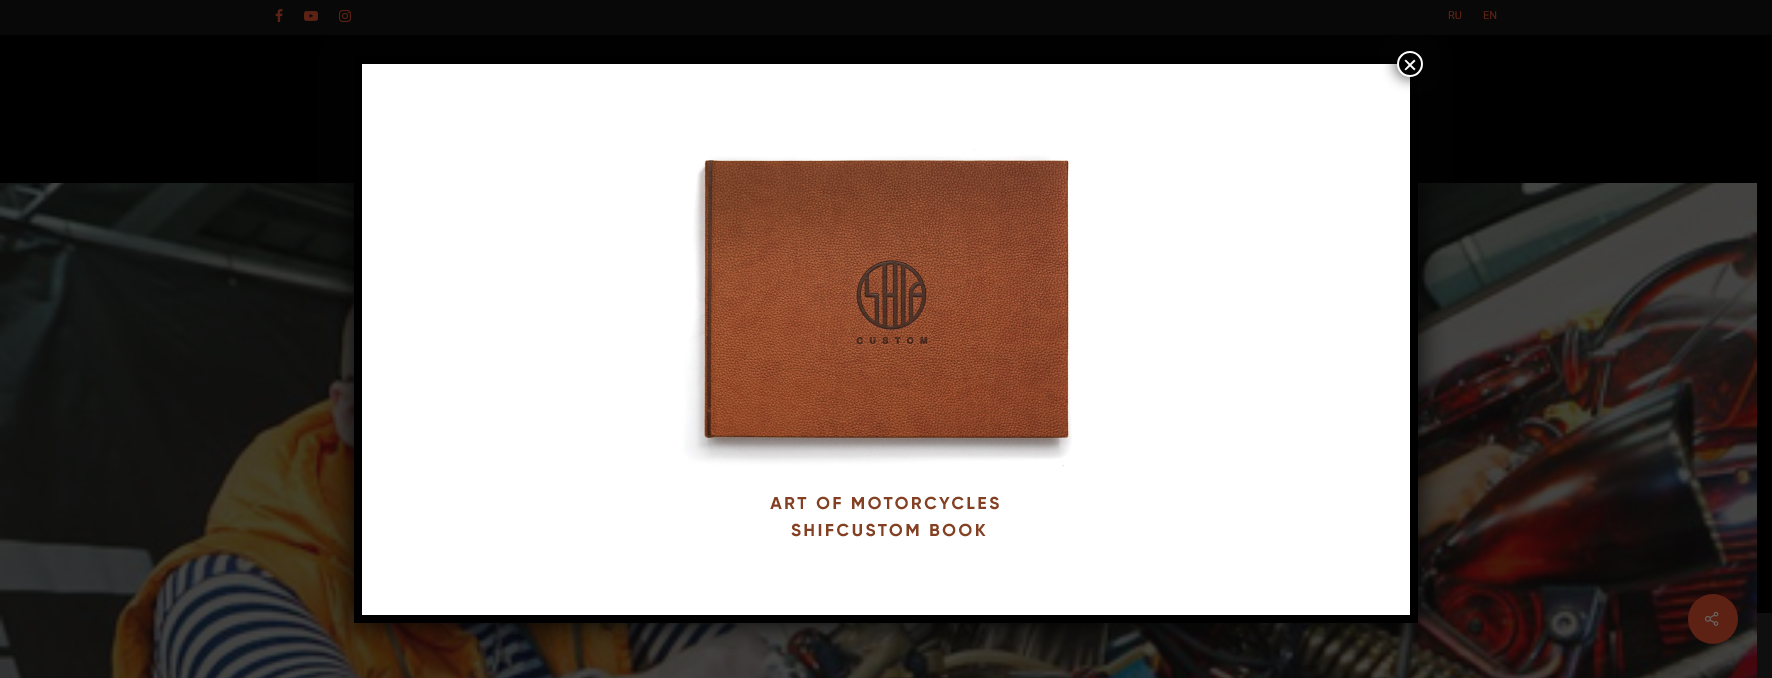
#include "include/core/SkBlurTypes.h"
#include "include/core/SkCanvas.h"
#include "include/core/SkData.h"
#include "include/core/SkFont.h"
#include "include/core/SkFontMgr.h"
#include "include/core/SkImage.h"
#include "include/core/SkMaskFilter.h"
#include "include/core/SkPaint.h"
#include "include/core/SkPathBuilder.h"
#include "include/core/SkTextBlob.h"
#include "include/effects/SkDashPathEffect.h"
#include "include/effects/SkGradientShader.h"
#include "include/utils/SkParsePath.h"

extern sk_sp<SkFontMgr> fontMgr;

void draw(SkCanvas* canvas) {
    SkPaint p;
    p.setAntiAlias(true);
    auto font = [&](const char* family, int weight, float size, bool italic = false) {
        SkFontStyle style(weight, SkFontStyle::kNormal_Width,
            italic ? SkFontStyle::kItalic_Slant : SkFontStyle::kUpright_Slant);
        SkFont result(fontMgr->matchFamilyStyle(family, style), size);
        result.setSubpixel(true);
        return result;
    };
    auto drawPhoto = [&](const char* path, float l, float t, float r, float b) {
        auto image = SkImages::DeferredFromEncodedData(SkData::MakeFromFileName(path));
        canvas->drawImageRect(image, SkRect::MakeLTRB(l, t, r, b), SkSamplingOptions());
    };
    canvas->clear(0xFF000000);
    p.setColor(0xFF080808);
    canvas->drawRect(SkRect::MakeLTRB(0, 0, 1772, 34), p);
    p.setColor(0xFF070707);
    canvas->drawRect(SkRect::MakeLTRB(0, 34, 1772, 35), p);
    drawPhoto("media/1.png", 275, 9, 283, 22);
    drawPhoto("media/2.png", 304, 11, 318, 21);
    drawPhoto("media/3.png", 339, 10, 351, 22);
    auto font1 = font("Roboto", 400, 11);
    p.setColor(0xFF5D2213);
    canvas->drawString("RU", 1448, 19, font1, p);
    canvas->drawString("EN", 1483, 19, font1, p);
    drawPhoto("media/5.png", 0, 183, 1757, 678);
    p.setColor(0xFF020202);
    p.setMaskFilter(SkMaskFilter::MakeBlur(kNormal_SkBlurStyle, 15));
    canvas->drawRoundRect(SkRect::MakeLTRB(354, 56, 1418, 623), 3, 3, p);
    p.setMaskFilter(nullptr);
    p.setColor(0xFFFFFFFF);
    canvas->drawRect(SkRect::MakeLTRB(362, 64, 1410, 615), p);
    p.setStyle(SkPaint::kStroke_Style);
    p.setStrokeWidth(8);
    p.setColor(0xFF000000);
    canvas->drawPath(SkPathBuilder().moveTo(358, 60).lineTo(1414, 60).lineTo(1414, 619).lineTo(358, 619).close().detach(), p);
    p.setStyle(SkPaint::kFill_Style);
    p.setColor(0xBF020202);
    p.setMaskFilter(SkMaskFilter::MakeBlur(kNormal_SkBlurStyle, 7.5f));
    canvas->drawRoundRect(SkRect::MakeLTRB(1396, 50, 1424, 78), 14, 14, p);
    p.setMaskFilter(nullptr);
    p.setColor(0xFF000000);
    canvas->drawCircle(1410, 64, 12, p);
    p.setStyle(SkPaint::kStroke_Style);
    p.setStrokeWidth(2);
    p.setColor(0xFFFFFFFF);
    canvas->drawCircle(1410, 64, 12, p);
    auto font2 = font("Liberation Sans", 400, 24);
    p.setStyle(SkPaint::kFill_Style);
    canvas->drawString("×", 1403, 73, font2, p);
    drawPhoto("media/4.png", 683, 149, 1072, 538);
    p.setColor(0xFF5D2213);
    canvas->drawCircle(1713, 619, 25, p);
    drawPhoto("media/6.png", 1705, 611, 1719, 626);
    p.setColor(0xFF0F0F0F);
    canvas->drawRect(SkRect::MakeLTRB(1757, 613, 1772, 678), p);
}
